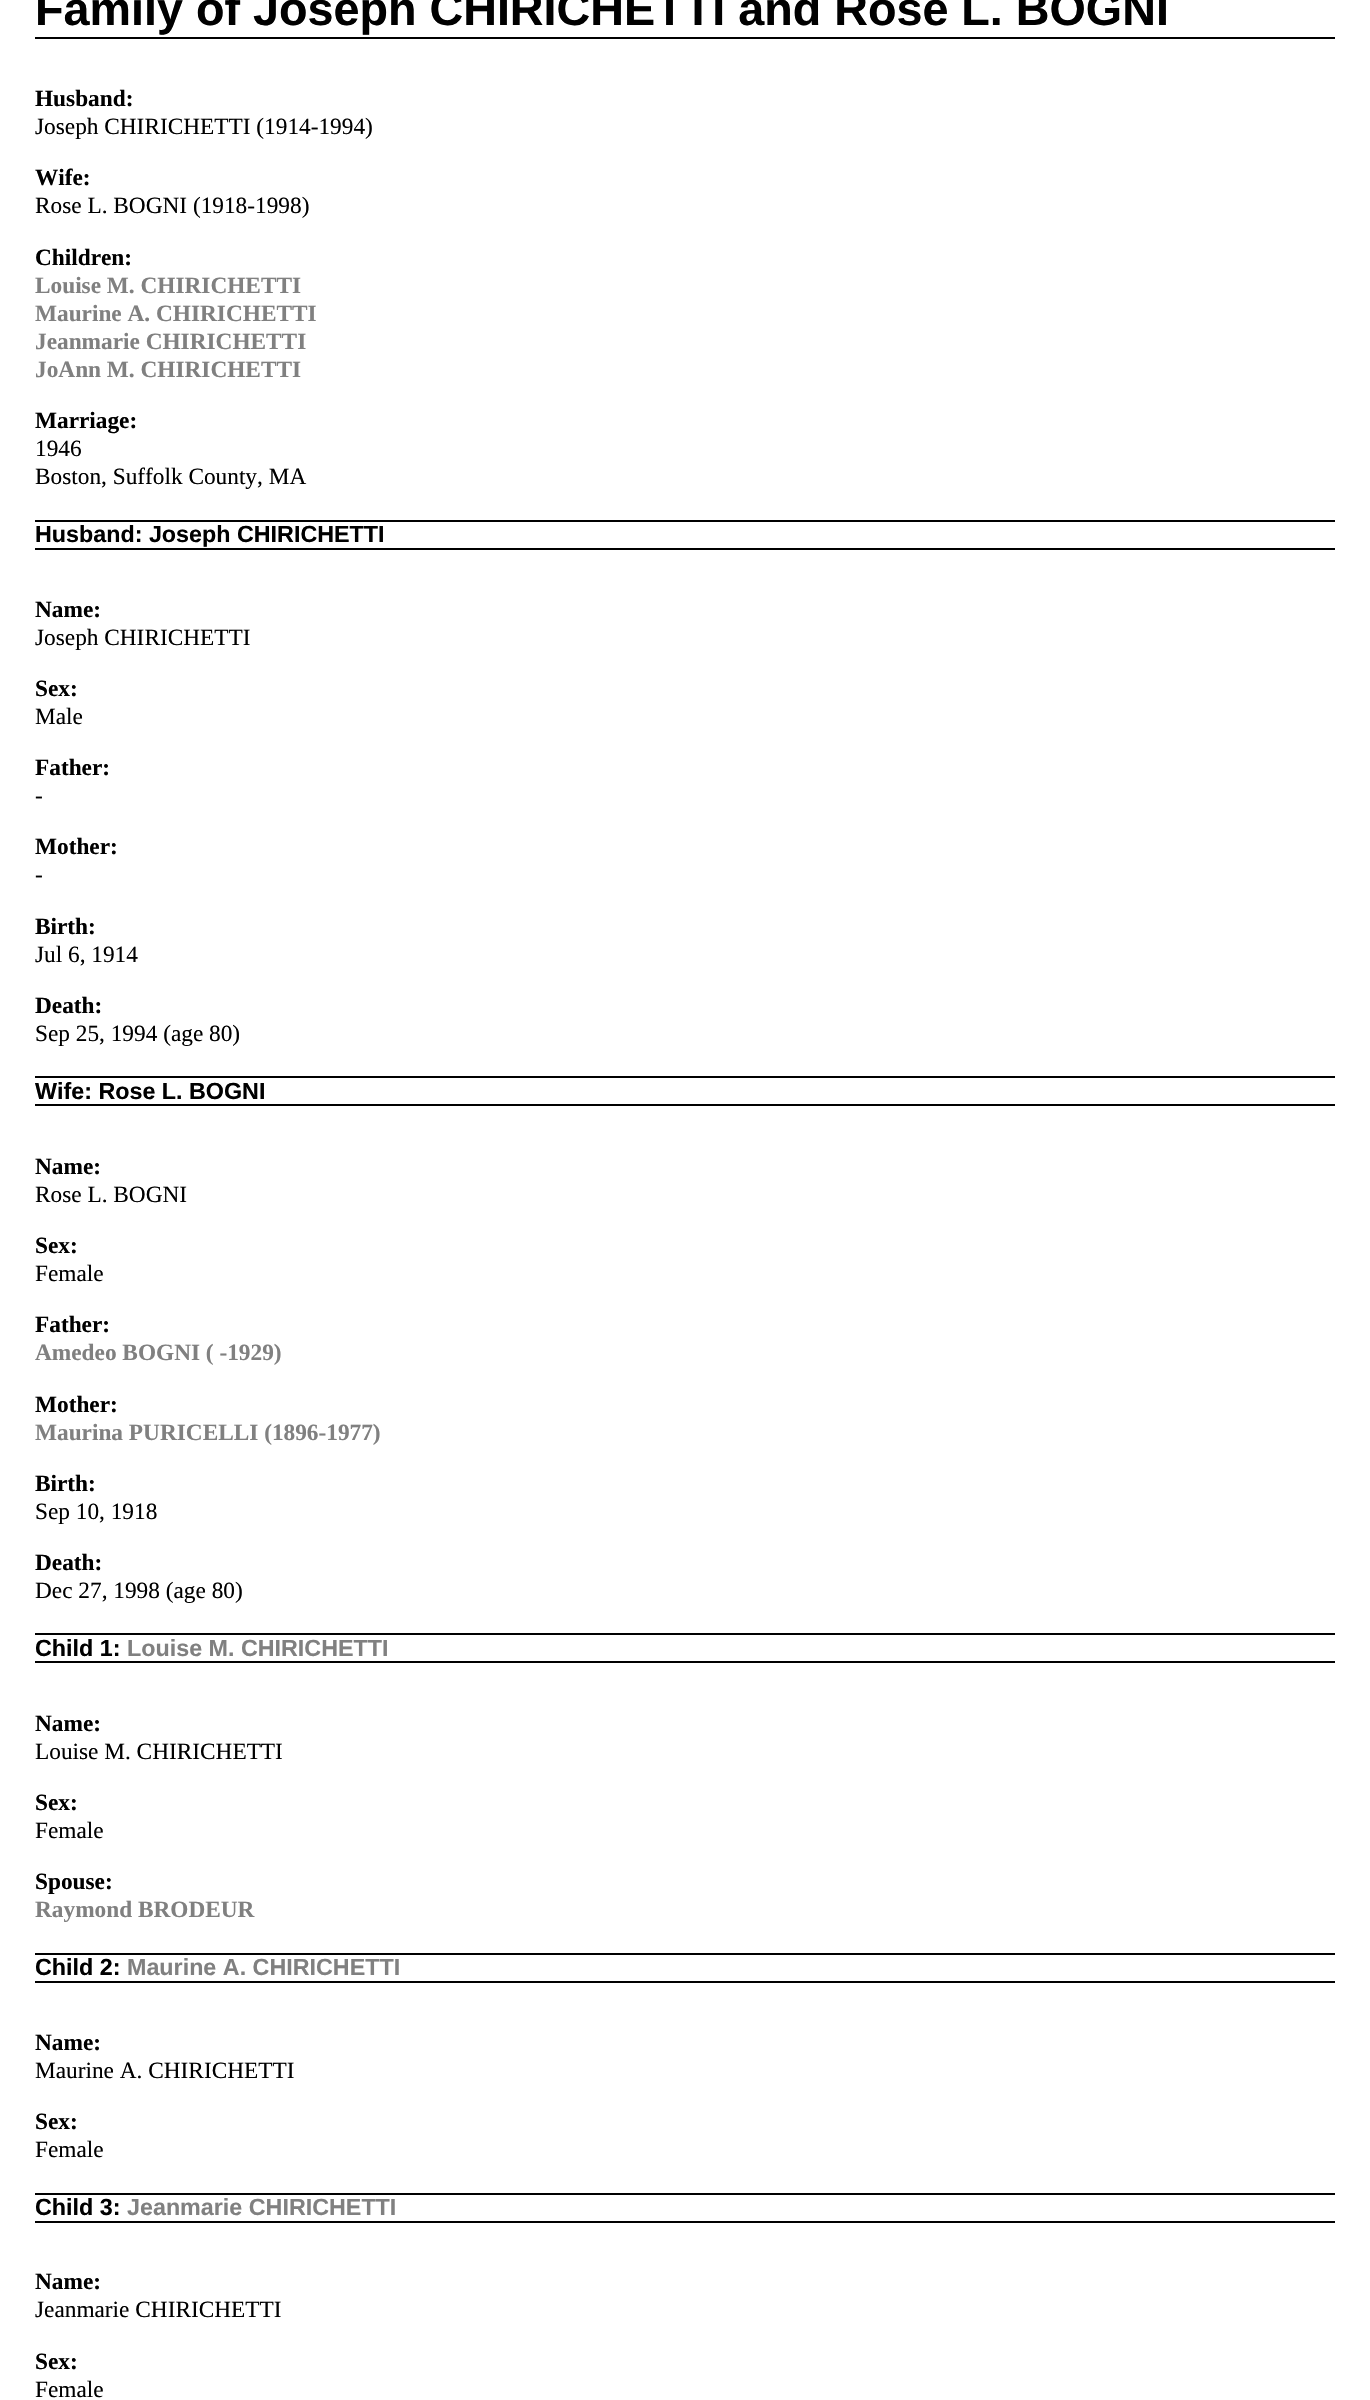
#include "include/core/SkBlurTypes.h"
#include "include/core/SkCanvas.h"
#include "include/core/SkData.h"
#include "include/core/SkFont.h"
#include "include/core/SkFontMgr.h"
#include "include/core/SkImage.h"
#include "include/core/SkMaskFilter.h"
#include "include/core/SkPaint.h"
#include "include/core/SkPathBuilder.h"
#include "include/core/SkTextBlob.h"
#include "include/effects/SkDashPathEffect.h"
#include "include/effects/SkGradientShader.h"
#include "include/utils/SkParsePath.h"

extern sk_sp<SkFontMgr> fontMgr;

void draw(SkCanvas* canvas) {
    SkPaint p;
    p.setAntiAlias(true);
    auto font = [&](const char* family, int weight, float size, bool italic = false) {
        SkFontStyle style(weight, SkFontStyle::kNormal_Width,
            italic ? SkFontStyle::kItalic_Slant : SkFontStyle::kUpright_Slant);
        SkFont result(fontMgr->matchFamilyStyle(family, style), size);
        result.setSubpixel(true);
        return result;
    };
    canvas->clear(0xFFFFFFFF);
    p.setColor(0xFF000000);
    canvas->drawRect(SkRect::MakeLTRB(35, 37, 1335, 39), p);
    auto font1 = font("Liberation Sans", 700, 46.7f);
    canvas->drawString("Family of Joseph CHIRICHETTI and Rose L. BOGNI", 35, 25, font1, p);
    auto font2 = font("Liberation Serif", 700, 23.3f);
    canvas->drawString("Husband:", 35, 106, font2, p);
    auto font3 = font("Liberation Serif", 400, 23.3f);
    canvas->drawString("Joseph CHIRICHETTI (1914-1994)", 35, 134, font3, p);
    canvas->drawString("Wife:", 35, 185, font2, p);
    canvas->drawString("Rose L. BOGNI (1918-1998)", 35, 213, font3, p);
    canvas->drawString("Children:", 35, 265, font2, p);
    p.setColor(0xFF808080);
    {
        const struct { const char* s; float x, y; } items[] = {
            {"Louise M. CHIRICHETTI", 35, 293},
            {"Maurine A. CHIRICHETTI", 35, 321},
            {"Jeanmarie CHIRICHETTI", 35, 349},
            {"JoAnn M. CHIRICHETTI", 35, 377},
        };
        for (auto [s, x, y] : items) {
            canvas->drawString(s, x, y, font2, p);
        }
    }
    p.setColor(0xFF000000);
    canvas->drawString("Marriage:", 35, 428, font2, p);
    canvas->drawString("1946", 35, 456, font3, p);
    canvas->drawString("Boston, Suffolk County, MA", 35, 484, font3, p);
    canvas->drawRect(SkRect::MakeLTRB(35, 520, 1335, 522), p);
    canvas->drawRect(SkRect::MakeLTRB(35, 548, 1335, 550), p);
    auto font4 = font("Liberation Sans", 700, 23.3f);
    canvas->drawString("Husband: Joseph CHIRICHETTI", 35, 542, font4, p);
    canvas->drawString("Name:", 35, 617, font2, p);
    canvas->drawString("Joseph CHIRICHETTI", 35, 645, font3, p);
    canvas->drawString("Sex:", 35, 696, font2, p);
    canvas->drawString("Male", 35, 724, font3, p);
    canvas->drawString("Father:", 35, 775, font2, p);
    canvas->drawString("-", 35, 803, font3, p);
    canvas->drawString("Mother:", 35, 854, font2, p);
    canvas->drawString("-", 35, 882, font3, p);
    canvas->drawString("Birth:", 35, 934, font2, p);
    canvas->drawString("Jul 6, 1914", 35, 962, font3, p);
    canvas->drawString("Death:", 35, 1013, font2, p);
    canvas->drawString("Sep 25, 1994 (age 80)", 35, 1041, font3, p);
    canvas->drawRect(SkRect::MakeLTRB(35, 1076, 1335, 1078), p);
    canvas->drawRect(SkRect::MakeLTRB(35, 1104, 1335, 1106), p);
    canvas->drawString("Wife: Rose L. BOGNI", 35, 1099, font4, p);
    canvas->drawString("Name:", 35, 1174, font2, p);
    canvas->drawString("Rose L. BOGNI", 35, 1202, font3, p);
    canvas->drawString("Sex:", 35, 1253, font2, p);
    canvas->drawString("Female", 35, 1281, font3, p);
    canvas->drawString("Father:", 35, 1332, font2, p);
    p.setColor(0xFF808080);
    canvas->drawString("Amedeo BOGNI ( -1929)", 35, 1360, font2, p);
    p.setColor(0xFF000000);
    canvas->drawString("Mother:", 35, 1412, font2, p);
    p.setColor(0xFF808080);
    canvas->drawString("Maurina PURICELLI (1896-1977)", 35, 1440, font2, p);
    p.setColor(0xFF000000);
    canvas->drawString("Birth:", 35, 1491, font2, p);
    canvas->drawString("Sep 10, 1918", 35, 1519, font3, p);
    canvas->drawString("Death:", 35, 1570, font2, p);
    canvas->drawString("Dec 27, 1998 (age 80)", 35, 1598, font3, p);
    canvas->drawRect(SkRect::MakeLTRB(35, 1633, 1335, 1635), p);
    canvas->drawRect(SkRect::MakeLTRB(35, 1661, 1335, 1663), p);
    canvas->drawString("Child 1:", 35, 1656, font4, p);
    p.setColor(0xFF808080);
    canvas->drawString("Louise M. CHIRICHETTI", 127, 1656, font4, p);
    p.setColor(0xFF000000);
    canvas->drawString("Name:", 35, 1731, font2, p);
    canvas->drawString("Louise M. CHIRICHETTI", 35, 1759, font3, p);
    canvas->drawString("Sex:", 35, 1810, font2, p);
    canvas->drawString("Female", 35, 1838, font3, p);
    canvas->drawString("Spouse:", 35, 1889, font2, p);
    p.setColor(0xFF808080);
    canvas->drawString("Raymond BRODEUR", 35, 1917, font2, p);
    p.setColor(0xFF000000);
    canvas->drawRect(SkRect::MakeLTRB(35, 1953, 1335, 1955), p);
    canvas->drawRect(SkRect::MakeLTRB(35, 1981, 1335, 1983), p);
    canvas->drawString("Child 2:", 35, 1975, font4, p);
    p.setColor(0xFF808080);
    canvas->drawString("Maurine A. CHIRICHETTI", 127, 1975, font4, p);
    p.setColor(0xFF000000);
    canvas->drawString("Name:", 35, 2050, font2, p);
    canvas->drawString("Maurine A. CHIRICHETTI", 35, 2078, font3, p);
    canvas->drawString("Sex:", 35, 2129, font2, p);
    canvas->drawString("Female", 35, 2157, font3, p);
    canvas->drawRect(SkRect::MakeLTRB(35, 2193, 1335, 2195), p);
    canvas->drawRect(SkRect::MakeLTRB(35, 2221, 1335, 2223), p);
    canvas->drawString("Child 3:", 35, 2215, font4, p);
    p.setColor(0xFF808080);
    canvas->drawString("Jeanmarie CHIRICHETTI", 127, 2215, font4, p);
    p.setColor(0xFF000000);
    canvas->drawString("Name:", 35, 2289, font2, p);
    canvas->drawString("Jeanmarie CHIRICHETTI", 35, 2317, font3, p);
    canvas->drawString("Sex:", 35, 2369, font2, p);
    canvas->drawString("Female", 35, 2397, font3, p);
}
